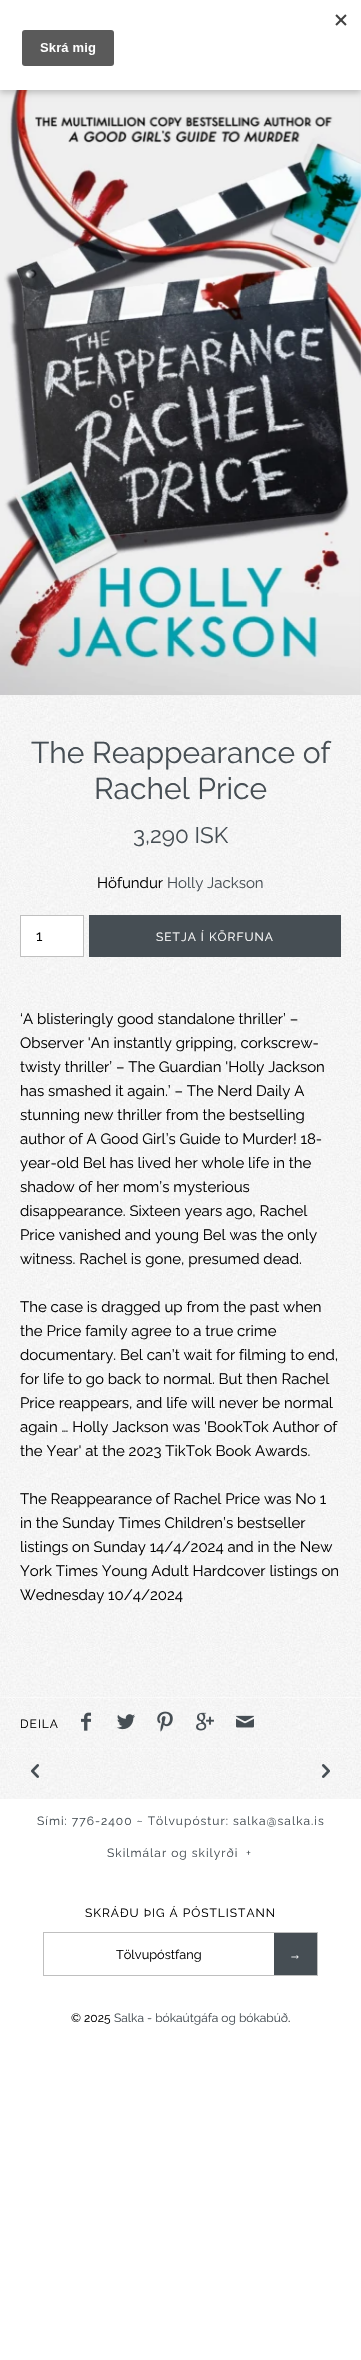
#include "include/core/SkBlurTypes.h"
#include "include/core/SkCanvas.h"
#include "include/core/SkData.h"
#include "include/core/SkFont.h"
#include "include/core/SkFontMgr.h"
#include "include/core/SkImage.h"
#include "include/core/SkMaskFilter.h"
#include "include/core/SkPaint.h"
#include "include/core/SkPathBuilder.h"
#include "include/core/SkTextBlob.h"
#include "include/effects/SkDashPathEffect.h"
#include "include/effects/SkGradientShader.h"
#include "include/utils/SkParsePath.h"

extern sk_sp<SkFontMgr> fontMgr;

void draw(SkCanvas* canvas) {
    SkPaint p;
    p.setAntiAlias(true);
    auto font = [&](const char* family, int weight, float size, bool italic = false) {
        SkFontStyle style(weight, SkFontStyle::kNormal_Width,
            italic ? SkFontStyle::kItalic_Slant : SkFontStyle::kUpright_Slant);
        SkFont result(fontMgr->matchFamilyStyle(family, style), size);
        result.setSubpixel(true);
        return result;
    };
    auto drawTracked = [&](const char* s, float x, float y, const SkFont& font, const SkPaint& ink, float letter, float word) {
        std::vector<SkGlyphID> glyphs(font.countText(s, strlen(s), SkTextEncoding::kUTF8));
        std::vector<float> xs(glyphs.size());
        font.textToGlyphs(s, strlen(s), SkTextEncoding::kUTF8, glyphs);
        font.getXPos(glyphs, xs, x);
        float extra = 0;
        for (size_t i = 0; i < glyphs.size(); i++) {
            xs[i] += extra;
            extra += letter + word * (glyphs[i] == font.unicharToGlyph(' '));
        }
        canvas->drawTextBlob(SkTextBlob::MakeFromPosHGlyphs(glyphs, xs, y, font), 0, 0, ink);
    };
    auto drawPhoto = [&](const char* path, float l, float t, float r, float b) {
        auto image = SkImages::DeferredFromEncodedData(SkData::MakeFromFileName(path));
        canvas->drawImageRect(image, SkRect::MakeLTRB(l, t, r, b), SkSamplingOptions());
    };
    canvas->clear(0xFFFFFFFF);
    drawPhoto("media/2.png", 0, 90, 361, 1799);
    drawPhoto("media/3.png", 0, 90, 361, 695);
    p.setColor(0x33000000);
    p.setMaskFilter(SkMaskFilter::MakeBlur(kNormal_SkBlurStyle, 3));
    canvas->drawRect(SkRect::MakeLTRB(0, 3, 361, 93), p);
    p.setMaskFilter(nullptr);
    p.setColor(0xFFFFFFFF);
    canvas->drawRect(SkRect::MakeLTRB(0, 0, 361, 90), p);
    drawPhoto("media/1.png", 22, 14, 347, 66);
    auto font1 = font("Raleway", 400, 30);
    p.setColor(0xFF464E54);
    canvas->drawString("The Reappearance of", 31, 763, font1, p);
    canvas->drawString("Rachel Price", 94, 799, font1, p);
    auto font2 = font("Raleway", 400, 22.5f);
    canvas->drawString("3,290 ISK", 133, 843, font2, p);
    auto font3 = font("Raleway", 400, 15);
    p.setColor(0xFF000000);
    canvas->drawString("Höfundur", 97, 888, font3, p);
    p.setColor(0xFF464E54);
    canvas->drawString("Holly Jackson", 167, 888, font3, p);
    p.setColor(0xFFFFFFFF);
    canvas->drawRect(SkRect::MakeLTRB(20.5f, 915.5f, 83.5f, 956.5f), p);
    p.setStyle(SkPaint::kStroke_Style);
    p.setStrokeWidth(1);
    p.setColor(0xFFBFBFBF);
    canvas->drawRect(SkRect::MakeLTRB(20.5f, 915.5f, 83.5f, 956.5f), p);
    p.setStyle(SkPaint::kFill_Style);
    p.setColor(0xFF000000);
    canvas->drawString("1", 36, 941, font3, p);
    p.setColor(0xFF464E54);
    canvas->drawRect(SkRect::MakeLTRB(89, 915, 341, 957), p);
    auto font4 = font("Raleway", 400, 12);
    p.setColor(0xFFFFFFFF);
    drawTracked("SETJA Í KÖRFUNA", 156, 941, font4, p, 1, 0);
    p.setColor(0xFF000000);
    {
        const struct { const char* s; float x, y; } items[] = {
            {"‘A blisteringly good standalone thriller’ –", 20, 1024},
            {"Observer 'An instantly gripping, corkscrew-", 20, 1048},
            {"twisty thriller’ – The Guardian 'Holly Jackson", 20, 1072},
            {"has smashed it again.’ – The Nerd Daily A", 20, 1096},
            {"stunning new thriller from the bestselling", 20, 1120},
            {"author of A Good Girl’s Guide to Murder! 18-", 20, 1144},
            {"year-old Bel has lived her whole life in the", 20, 1168},
            {"shadow of her mom’s mysterious", 20, 1192},
            {"disappearance. Sixteen years ago, Rachel", 20, 1216},
            {"Price vanished and young Bel was the only", 20, 1240},
            {"witness. Rachel is gone, presumed dead.", 20, 1264},
            {"The case is dragged up from the past when", 20, 1312},
            {"the Price family agree to a true crime", 20, 1336},
            {"documentary. Bel can’t wait for filming to end,", 20, 1360},
            {"for life to go back to normal. But then Rachel", 20, 1384},
            {"Price reappears, and life will never be normal", 20, 1408},
            {"again … Holly Jackson was 'BookTok Author of", 20, 1432},
            {"the Year' at the 2023 TikTok Book Awards.", 20, 1456},
            {"The Reappearance of Rachel Price was No 1", 20, 1504},
            {"in the Sunday Times Children’s bestseller", 20, 1528},
            {"listings on Sunday 14/4/2024 and in the New", 20, 1552},
            {"York Times Young Adult Hardcover listings on", 20, 1576},
            {"Wednesday 10/4/2024", 20, 1600},
        };
        for (auto [s, x, y] : items) {
            canvas->drawString(s, x, y, font3, p);
        }
    }
    p.setColor(0x80FFFFFF);
    canvas->drawRect(SkRect::MakeLTRB(0, 1697, 361, 1698), p);
    p.setStyle(SkPaint::kStroke_Style);
    p.setPathEffect(SkDashPathEffect::Make({{1, 1}}, 0));
    canvas->drawPath(SkPathBuilder().moveTo(0, 1748.5f).lineTo(361, 1748.5f).detach(), p);
    p.setPathEffect(nullptr);
    p.setStyle(SkPaint::kFill_Style);
    p.setColor(0xFF000000);
    drawTracked("DEILA", 20, 1728, font4, p, 1, 0);
    drawPhoto("media/4.png", 81, 1712, 91, 1731);
    drawPhoto("media/5.png", 117, 1714, 135, 1730);
    drawPhoto("media/6.png", 157, 1711, 173, 1732);
    drawPhoto("media/7.png", 196, 1712, 214, 1731);
    drawPhoto("media/8.png", 236, 1715, 254, 1728);
    drawPhoto("media/9.png", 31, 1764, 40, 1778);
    drawPhoto("media/10.png", 321, 1764, 330, 1778);
    p.setColor(0xFF464E54);
    {
        const struct { const char* s; float x, y; } items[] = {
            {"Sími: 776-2400 ~ Tölvupóstur: salka@salka.is", 37, 1825},
            {"Skilmálar og skilyrði", 107, 1857},
            {"+", 246, 1857},
        };
        for (auto [s, x, y] : items) {
            drawTracked(s, x, y, font4, p, 1, 0);
        }
    }
    p.setColor(0xFF000000);
    drawTracked("SKRÁÐU ÞIG Á PÓSTLISTANN", 85, 1917, font4, p, 1, 0);
    p.setStyle(SkPaint::kStroke_Style);
    p.setColor(0xFFBFBFBF);
    canvas->drawRect(SkRect::MakeLTRB(43.5f, 1932.5f, 317.5f, 1975.5f), p);
    auto font5 = font("Raleway", 400, 12.75f);
    p.setStyle(SkPaint::kFill_Style);
    p.setColor(0xFF000000);
    canvas->drawString("Tölvupóstfang", 116, 1959, font5, p);
    p.setColor(0xFF464E54);
    canvas->drawRect(SkRect::MakeLTRB(274, 1933, 317, 1975), p);
    auto font6 = font("Liberation Serif", 400, 12);
    p.setColor(0xFFFFFFFF);
    drawTracked("→", 289, 1959, font6, p, 1, 0);
    p.setColor(0xFF000000);
    canvas->drawString("© 2025", 71, 2022, font4, p);
    p.setColor(0xFF464E54);
    canvas->drawString("Salka - bókaútgáfa og bókabúð", 114, 2022, font4, p);
    p.setColor(0xFF000000);
    canvas->drawString(".", 288, 2022, font4, p);
}
